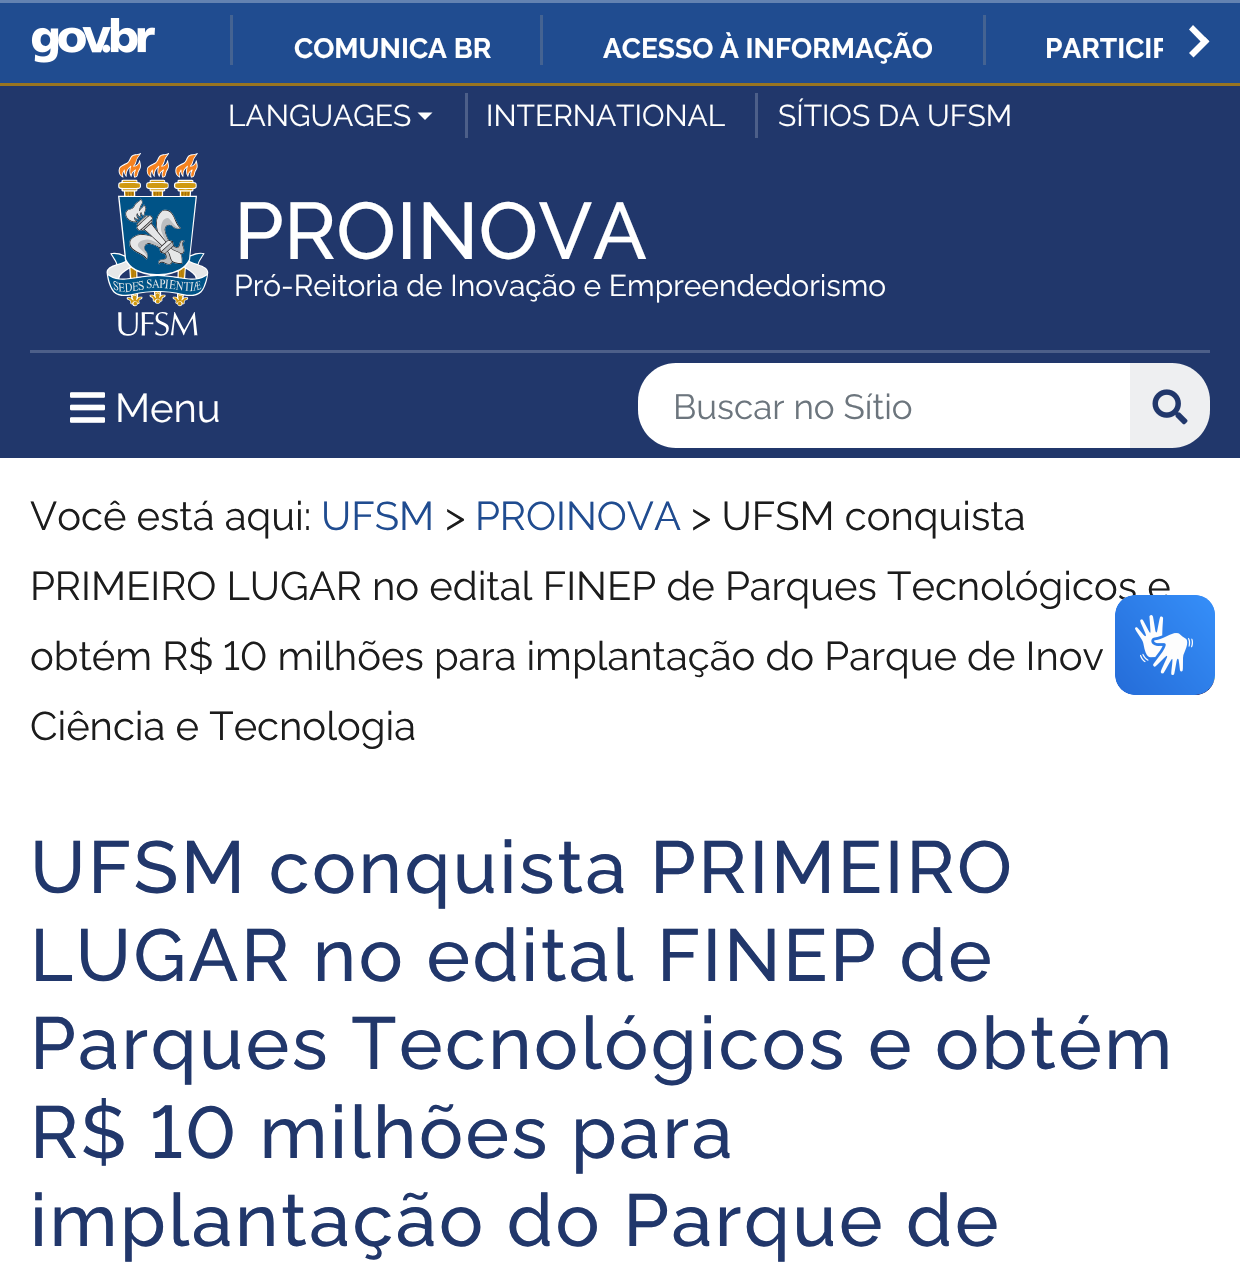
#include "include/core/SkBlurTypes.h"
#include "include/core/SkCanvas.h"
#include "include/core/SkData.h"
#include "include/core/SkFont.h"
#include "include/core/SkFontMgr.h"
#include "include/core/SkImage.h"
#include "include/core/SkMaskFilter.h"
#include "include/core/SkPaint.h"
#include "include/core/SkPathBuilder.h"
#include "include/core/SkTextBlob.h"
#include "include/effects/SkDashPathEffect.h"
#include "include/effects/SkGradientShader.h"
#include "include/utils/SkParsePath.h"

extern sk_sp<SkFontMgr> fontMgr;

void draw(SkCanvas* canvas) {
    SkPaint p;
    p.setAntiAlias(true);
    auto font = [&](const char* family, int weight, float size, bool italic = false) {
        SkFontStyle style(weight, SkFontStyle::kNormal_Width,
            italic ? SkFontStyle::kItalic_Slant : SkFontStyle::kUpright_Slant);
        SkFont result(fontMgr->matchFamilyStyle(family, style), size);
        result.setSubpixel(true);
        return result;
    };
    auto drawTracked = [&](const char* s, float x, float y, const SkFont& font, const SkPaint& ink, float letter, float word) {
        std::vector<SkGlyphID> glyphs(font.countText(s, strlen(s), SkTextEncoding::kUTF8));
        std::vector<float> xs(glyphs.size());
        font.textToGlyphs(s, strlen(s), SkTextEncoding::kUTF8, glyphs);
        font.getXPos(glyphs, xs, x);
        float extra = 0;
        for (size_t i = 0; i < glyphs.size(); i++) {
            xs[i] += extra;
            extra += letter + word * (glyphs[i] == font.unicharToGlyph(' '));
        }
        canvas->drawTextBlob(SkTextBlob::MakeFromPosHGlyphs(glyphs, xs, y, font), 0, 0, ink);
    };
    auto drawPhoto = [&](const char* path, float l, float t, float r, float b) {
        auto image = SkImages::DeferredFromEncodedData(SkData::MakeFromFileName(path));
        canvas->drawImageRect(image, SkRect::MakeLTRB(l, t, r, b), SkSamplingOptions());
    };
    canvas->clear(0xFFFFFFFF);
    p.setColor(0xFF204C90);
    canvas->drawRect(SkRect::MakeLTRB(0, 3, 1240, 83), p);
    p.setColor(0xFF6382B1);
    canvas->drawRect(SkRect::MakeLTRB(0, 0, 1240, 3), p);
    drawPhoto("media/1.png", 31, 18, 155, 63);
    p.setColor(0xFF446392);
    canvas->drawRect(SkRect::MakeLTRB(230, 15, 233, 65), p);
    auto font1 = font("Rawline", 700, 28);
    p.setColor(0xFFFFFFFF);
    canvas->drawString("COMUNICA BR", 294, 58, font1, p);
    p.setColor(0xFF446392);
    canvas->drawRect(SkRect::MakeLTRB(540, 15, 543, 65), p);
    p.setColor(0xFFFFFFFF);
    canvas->drawString("ACESSO À INFORMAÇÃO", 603, 58, font1, p);
    p.setColor(0xFF446392);
    canvas->drawRect(SkRect::MakeLTRB(983, 15, 986, 65), p);
    canvas->save();
    canvas->clipRect(SkRect::MakeLTRB(180, 5, 1163, 75));
    p.setColor(0xFFFFFFFF);
    canvas->drawString("PARTICIP", 1045, 58, font1, p);
    canvas->restore();
    canvas->drawPath(SkPathBuilder(SkPathFillType::kEvenOdd).moveTo(1189, 53).lineTo(1205, 37).lineTo(1209.5f, 41.5f).lineTo(1193.5f, 57.5f).close().detach(), p);
    canvas->drawPath(SkPathBuilder(SkPathFillType::kEvenOdd).moveTo(1189, 29.5f).lineTo(1204.5f, 45.5f).lineTo(1209, 41).lineTo(1193, 25).close().detach(), p);
    p.setColor(0xFF21376B);
    canvas->drawRect(SkRect::MakeLTRB(0, 86, 1240, 458), p);
    p.setColor(0xFF997520);
    canvas->drawRect(SkRect::MakeLTRB(0, 83, 1240, 86), p);
    auto font2 = font("Rawline", 400, 30);
    p.setColor(0xFFFFFFFF);
    canvas->drawString("LANGUAGES", 228, 126, font2, p);
    canvas->drawPath(SkPathBuilder().moveTo(417.5f, 112.5f).lineTo(432.5f, 112.5f).lineTo(425, 120).close().detach(), p);
    p.setColor(0xFF4D5F89);
    canvas->drawRect(SkRect::MakeLTRB(465, 93, 468, 138), p);
    p.setColor(0xFFFFFFFF);
    canvas->drawString("INTERNATIONAL", 486, 126, font2, p);
    p.setColor(0xFF4D5F89);
    canvas->drawRect(SkRect::MakeLTRB(755, 93, 758, 138), p);
    p.setColor(0xFFFFFFFF);
    canvas->drawString("SÍTIOS DA UFSM", 778, 126, font2, p);
    p.setColor(0xFF4D5F89);
    canvas->drawRect(SkRect::MakeLTRB(30, 350, 1210, 353), p);
    drawPhoto("media/2.png", 106, 153, 209, 336);
    auto font3 = font("Rawline", 500, 80);
    p.setColor(0xFFFFFFFF);
    canvas->drawString("PROINOVA", 234, 259, font3, p);
    canvas->drawString("Pró-Reitoria de Inovação e Empreendedorismo", 234, 296, font2, p);
    drawPhoto("media/3.png", 70, 392, 105, 423);
    auto font4 = font("Rawline", 400, 40);
    canvas->drawString("Menu", 115, 422, font4, p);
    canvas->save();
    canvas->clipPath(SkPathBuilder().moveTo(676, 363).lineTo(1172, 363).cubicTo(1193, 363, 1210, 380, 1210, 401).lineTo(1210, 410).cubicTo(1210, 431, 1193, 448, 1172, 448).lineTo(676, 448).cubicTo(655, 448, 638, 431, 638, 410).lineTo(638, 401).cubicTo(638, 380, 655, 363, 676, 363).close().detach(), true);
    canvas->drawPath(SkPathBuilder().moveTo(645, 363).lineTo(1133, 363).lineTo(1133, 448).lineTo(645, 448).cubicTo(639.5f, 448, 635, 443.5f, 635, 438).lineTo(635, 373).cubicTo(635, 367.5f, 639.5f, 363, 645, 363).close().detach(), p);
    canvas->restore();
    auto font5 = font("Rawline", 400, 35);
    p.setColor(0xFF6C757D);
    canvas->drawString("Buscar no Sítio", 673, 419, font5, p);
    p.setColor(0xFFEEEFF1);
    canvas->drawPath(SkPathBuilder().moveTo(1130, 363).lineTo(1172, 363).cubicTo(1193, 363, 1210, 380, 1210, 401).lineTo(1210, 410).cubicTo(1210, 431, 1193, 448, 1172, 448).lineTo(1130, 448).close().detach(), p);
    drawPhoto("media/4.png", 1152, 389, 1188, 425);
    p.setColor(0xFF1C1C1C);
    canvas->drawString("Você está aqui:", 30, 530, font4, p);
    p.setColor(0xFF204C90);
    canvas->drawString("UFSM", 321, 530, font4, p);
    p.setColor(0xFF1C1C1C);
    canvas->drawString(">", 445, 530, font4, p);
    p.setColor(0xFF204C90);
    canvas->drawString("PROINOVA", 475, 530, font4, p);
    p.setColor(0xFF1C1C1C);
    {
        const struct { const char* s; float x, y; } items[] = {
            {"> UFSM conquista", 691, 530},
            {"PRIMEIRO LUGAR no edital FINEP de Parques Tecnológicos e", 30, 600},
            {"obtém R$ 10 milhões para implantação do Parque de Inov", 30, 670},
            {"Ciência e Tecnologia", 30, 740},
        };
        for (auto [s, x, y] : items) {
            canvas->drawString(s, x, y, font4, p);
        }
    }
    auto font6 = font("Rawline", 500, 73.6f);
    p.setColor(0xFF21376B);
    {
        const struct { const char* s; float x, y; } items[] = {
            {"UFSM conquista PRIMEIRO", 30, 893},
            {"LUGAR no edital FINEP de", 30, 981},
            {"Parques Tecnológicos e obtém", 30, 1069},
            {"R$ 10 milhões para", 30, 1158},
            {"implantação do Parque de", 30, 1246},
        };
        for (auto [s, x, y] : items) {
            drawTracked(s, x, y, font6, p, 2.5f, 0);
        }
    }
    drawPhoto("media/5.png", 1115, 595, 1215, 695);
    drawPhoto("media/6.png", 1115, 595, 1215, 695);
}
